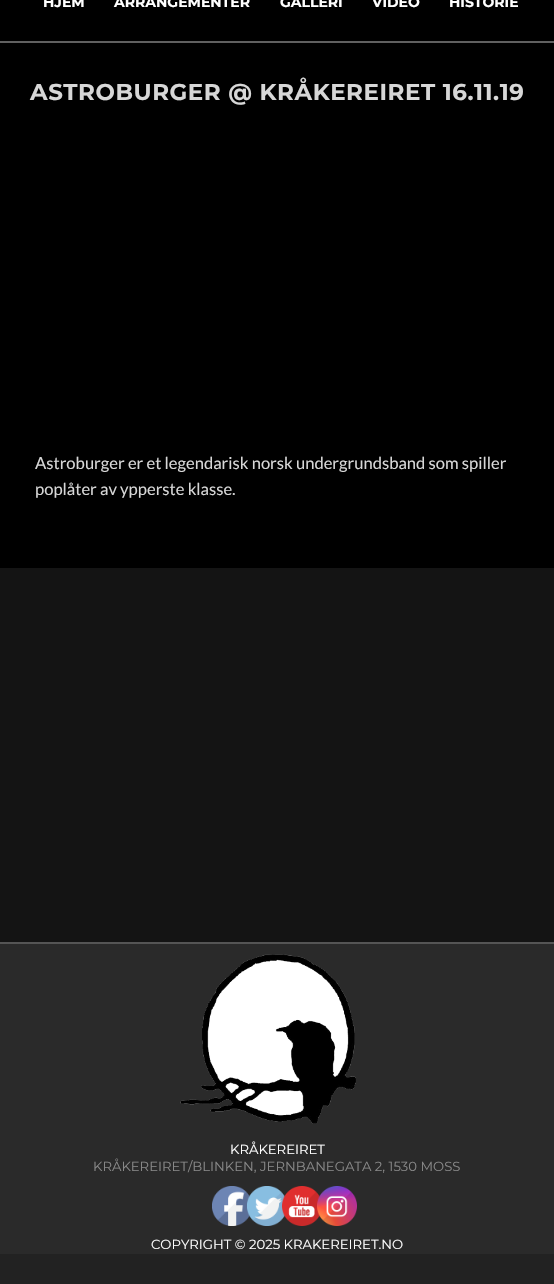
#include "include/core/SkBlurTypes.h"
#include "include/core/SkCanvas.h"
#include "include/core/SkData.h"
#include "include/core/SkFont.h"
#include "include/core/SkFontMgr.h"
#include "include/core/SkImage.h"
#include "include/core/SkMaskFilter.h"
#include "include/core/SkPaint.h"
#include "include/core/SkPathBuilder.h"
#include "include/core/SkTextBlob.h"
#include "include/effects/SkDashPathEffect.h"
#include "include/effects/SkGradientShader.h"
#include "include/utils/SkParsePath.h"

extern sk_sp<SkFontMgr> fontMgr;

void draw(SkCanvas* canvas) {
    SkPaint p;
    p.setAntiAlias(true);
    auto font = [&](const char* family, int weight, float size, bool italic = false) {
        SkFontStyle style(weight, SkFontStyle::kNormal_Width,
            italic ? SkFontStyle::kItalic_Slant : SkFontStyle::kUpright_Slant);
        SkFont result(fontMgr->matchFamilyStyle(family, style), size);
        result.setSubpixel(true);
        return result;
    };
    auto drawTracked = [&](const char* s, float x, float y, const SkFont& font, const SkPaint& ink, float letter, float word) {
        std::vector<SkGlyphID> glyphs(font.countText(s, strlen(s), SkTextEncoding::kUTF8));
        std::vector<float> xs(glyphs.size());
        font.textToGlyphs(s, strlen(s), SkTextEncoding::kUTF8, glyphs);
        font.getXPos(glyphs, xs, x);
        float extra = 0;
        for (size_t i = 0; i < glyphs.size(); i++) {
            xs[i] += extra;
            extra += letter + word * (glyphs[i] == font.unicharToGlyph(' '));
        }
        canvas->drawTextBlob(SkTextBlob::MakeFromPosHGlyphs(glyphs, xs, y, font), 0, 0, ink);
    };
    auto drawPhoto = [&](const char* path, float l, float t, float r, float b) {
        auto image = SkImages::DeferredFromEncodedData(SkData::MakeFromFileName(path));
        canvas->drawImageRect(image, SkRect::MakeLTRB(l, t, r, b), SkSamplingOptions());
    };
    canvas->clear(0xFF000000);
    p.setColor(0xFF606060);
    canvas->drawRect(SkRect::MakeLTRB(0, 41, 554, 43), p);
    auto font1 = font("Montserrat", 700, 14);
    p.setColor(0xFFFFFFFF);
    {
        const struct { const char* s; float x, y; } items[] = {
            {"HJEM", 43, 7},
            {"ARRANGEMENTER", 114, 7},
            {"GALLERI", 280, 7},
            {"VIDEO", 372, 7},
            {"HISTORIE", 449, 7},
        };
        for (auto [s, x, y] : items) {
            canvas->drawString(s, x, y, font1, p);
        }
    }
    p.setColor(0xFF141414);
    canvas->drawRect(SkRect::MakeLTRB(0, 568, 554, 942), p);
    auto font2 = font("Montserrat", 700, 22.95f);
    p.setColor(0xFFD7D7D7);
    drawTracked("ASTROBURGER @ KRÅKEREIRET 16.11.19", 30, 100, font2, p, 0.55f, 0);
    auto font3 = font("Lato", 400, 16.6f);
    canvas->drawString("Astroburger er et legendarisk norsk undergrundsband som spiller", 35, 469, font3, p);
    canvas->drawString("poplåter av ypperste klasse.", 35, 495, font3, p);
    {
        const struct { float l, t, r, b; SkColor color; } items[] = {
            {0, 1254, 554, 1284, 0xFF222222},
            {0, 944, 554, 1254, 0xFF2A2A2A},
            {0, 942, 554, 944, 0xFF555555},
        };
        for (auto [l, t, r, b, color] : items) {
            p.setColor(color);
            canvas->drawRect(SkRect::MakeLTRB(l, t, r, b), p);
        }
    }
    drawPhoto("media/1.png", 180, 954, 356, 1124);
    auto font4 = font("Montserrat", 400, 13.2f);
    p.setColor(0xFFFFFFFF);
    canvas->drawString("KRÅKEREIRET", 230, 1154, font4, p);
    p.setColor(0xFF888888);
    canvas->drawString("KRÅKEREIRET/BLINKEN, JERNBANEGATA 2, 1530 MOSS", 93, 1171, font4, p);
    drawPhoto("media/2.png", 212, 1186, 251, 1226);
    drawPhoto("media/3.png", 247, 1186, 286, 1226);
    drawPhoto("media/4.png", 282, 1186, 321, 1226);
    drawPhoto("media/5.png", 317, 1186, 357, 1226);
    p.setColor(0xFFFFFFFF);
    canvas->drawString("COPYRIGHT © 2025 KRAKEREIRET.NO", 151, 1249, font4, p);
}
